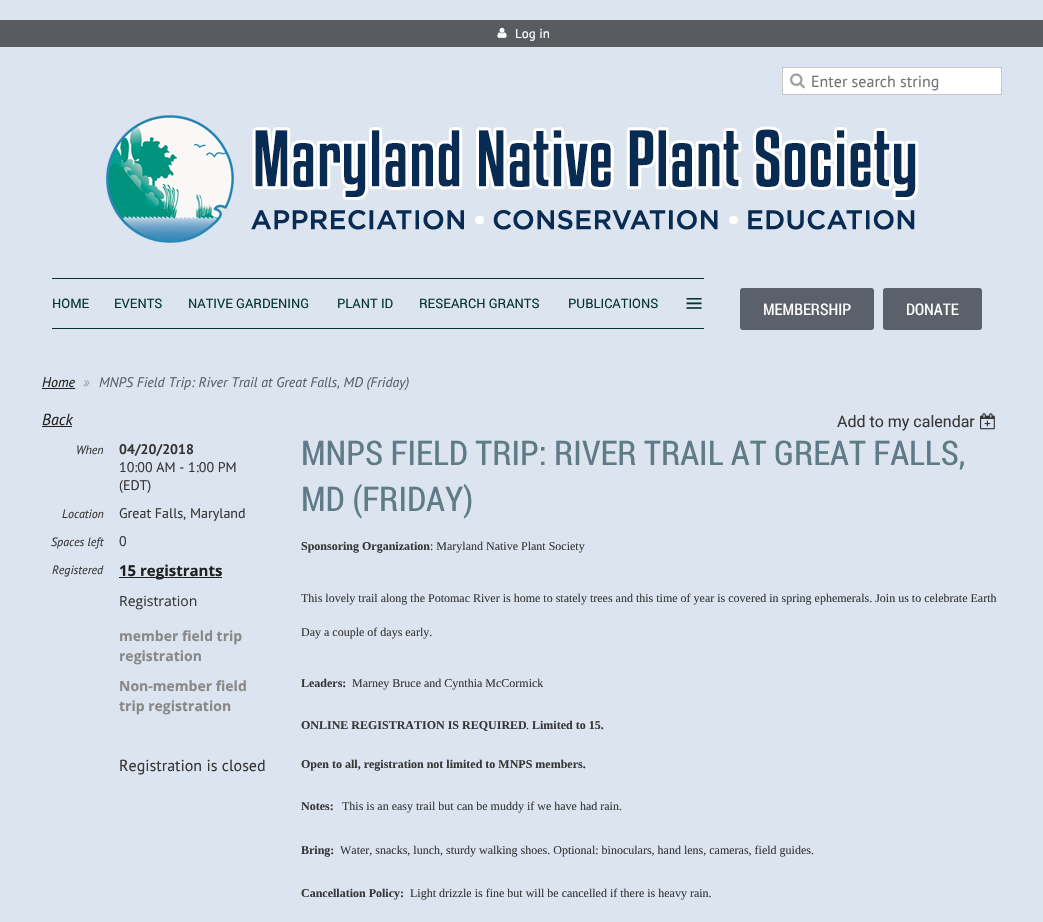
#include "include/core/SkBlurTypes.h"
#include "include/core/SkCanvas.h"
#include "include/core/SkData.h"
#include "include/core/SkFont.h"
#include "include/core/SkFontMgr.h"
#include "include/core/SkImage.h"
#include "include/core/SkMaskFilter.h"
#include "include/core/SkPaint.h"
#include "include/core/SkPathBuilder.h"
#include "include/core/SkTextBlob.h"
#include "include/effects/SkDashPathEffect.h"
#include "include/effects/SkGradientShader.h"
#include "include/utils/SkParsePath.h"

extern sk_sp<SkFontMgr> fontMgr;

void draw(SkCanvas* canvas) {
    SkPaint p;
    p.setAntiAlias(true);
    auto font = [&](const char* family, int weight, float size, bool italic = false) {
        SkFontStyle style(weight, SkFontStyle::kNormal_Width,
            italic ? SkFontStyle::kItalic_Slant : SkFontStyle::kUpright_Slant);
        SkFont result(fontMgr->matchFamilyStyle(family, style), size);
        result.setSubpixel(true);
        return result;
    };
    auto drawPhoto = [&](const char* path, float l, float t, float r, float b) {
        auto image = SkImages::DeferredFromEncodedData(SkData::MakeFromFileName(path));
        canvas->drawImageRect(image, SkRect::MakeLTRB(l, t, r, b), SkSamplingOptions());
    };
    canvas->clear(0xFFDCE4EF);
    p.setColor(0xFF585B60);
    canvas->drawRect(SkRect::MakeLTRB(0, 20, 1043, 47), p);
    drawPhoto("media/1.png", 497, 27, 507, 38);
    auto font1 = font("PT Sans", 400, 13);
    p.setColor(0xFFFFFFFF);
    canvas->drawString("Log in", 515, 38, font1, p);
    canvas->drawRect(SkRect::MakeLTRB(782.5f, 67.5f, 1001.5f, 94.5f), p);
    p.setStyle(SkPaint::kStroke_Style);
    p.setStrokeWidth(1);
    p.setColor(0xFFC6C6C6);
    canvas->drawRect(SkRect::MakeLTRB(782.5f, 67.5f, 1001.5f, 94.5f), p);
    drawPhoto("media/2.png", 790, 73, 805, 89);
    auto font2 = font("PT Sans", 400, 16);
    p.setStyle(SkPaint::kFill_Style);
    p.setColor(0xFF757575);
    canvas->drawString("Enter search string", 811, 87, font2, p);
    drawPhoto("media/3.png", 106, 115, 234, 243);
    drawPhoto("media/4.png", 251, 126, 919, 230);
    p.setColor(0xFF033333);
    canvas->drawRect(SkRect::MakeLTRB(52, 278, 704, 279), p);
    canvas->drawRect(SkRect::MakeLTRB(52, 328, 704, 329), p);
    auto font3 = font("Roboto", 400, 13);
    {
        const struct { const char* s; float x, y; } items[] = {
            {"HOME", 52, 308},
            {"EVENTS", 114, 308},
            {"NATIVE GARDENING", 188, 308},
            {"PLANT ID", 337, 308},
            {"RESEARCH GRANTS", 419, 308},
            {"PUBLICATIONS", 568, 308},
        };
        for (auto [s, x, y] : items) {
            canvas->drawString(s, x, y, font3, p);
        }
    }
    auto font4 = font("Liberation Serif", 400, 32);
    canvas->drawString("≡", 685, 314, font4, p);
    p.setColor(0xFF5B616B);
    canvas->drawRoundRect(SkRect::MakeLTRB(740, 288, 874, 330), 3, 3, p);
    auto font5 = font("Roboto Condensed", 400, 16);
    p.setColor(0xFFFFFFFF);
    canvas->drawString("MEMBERSHIP", 763, 315, font5, p);
    p.setColor(0xFF5B616B);
    canvas->drawRoundRect(SkRect::MakeLTRB(883, 288, 982, 330), 3, 3, p);
    p.setColor(0xFFFFFFFF);
    canvas->drawString("DONATE", 906, 315, font5, p);
    auto font6 = font("PT Sans", 400, 14, true);
    p.setColor(0xFF212121);
    canvas->drawString("Home", 42, 387, font6, p);
    canvas->drawRect(SkRect::MakeLTRB(42, 388, 75, 389), p);
    p.setColor(0xFF9DA1A3);
    canvas->drawString("»", 83, 387, font6, p);
    p.setColor(0xFF5B616B);
    canvas->drawString("MNPS Field Trip: River Trail at Great Falls, MD (Friday)", 99, 387, font6, p);
    auto font7 = font("PT Sans", 400, 16, true);
    p.setColor(0xFF212121);
    canvas->drawString("Back", 42, 425, font7, p);
    canvas->drawRect(SkRect::MakeLTRB(42, 426, 72, 427), p);
    auto font8 = font("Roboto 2", 400, 16);
    p.setColor(0xFF373737);
    canvas->drawString("Add to my calendar", 837, 427, font8, p);
    drawPhoto("media/5.png", 980, 413, 995, 430);
    auto font9 = font("Roboto Condensed", 400, 34);
    p.setColor(0xFF5F7B87);
    canvas->drawString("MNPS FIELD TRIP: RIVER TRAIL AT GREAT FALLS,", 301, 465, font9, p);
    canvas->drawString("MD (FRIDAY)", 301, 511, font9, p);
    auto font10 = font("PT Sans", 400, 12, true);
    p.setColor(0xFF373737);
    canvas->drawString("When", 76, 454, font10, p);
    auto font11 = font("PT Sans", 700, 14);
    canvas->drawString("04/20/2018", 119, 454, font11, p);
    auto font12 = font("PT Sans", 400, 14);
    canvas->drawString("10:00 AM - 1:00 PM", 119, 472, font12, p);
    canvas->drawString("(EDT)", 119, 490, font12, p);
    canvas->drawString("Location", 62, 518, font10, p);
    canvas->drawString("Great Falls, Maryland", 119, 518, font12, p);
    canvas->drawString("Spaces left", 51, 546, font10, p);
    canvas->drawString("0", 119, 546, font12, p);
    canvas->drawString("Registered", 52, 574, font10, p);
    p.setColor(0xFF212121);
    canvas->drawRect(SkRect::MakeLTRB(119, 577, 222, 578), p);
    auto font13 = font("Open Sans", 700, 15);
    canvas->drawString("15 registrants", 119, 576, font13, p);
    auto font14 = font("Open Sans", 400, 14);
    p.setColor(0xFF373737);
    canvas->drawString("Registration", 119, 606, font14, p);
    auto font15 = font("Open Sans", 700, 14);
    p.setColor(0xFF888888);
    {
        const struct { const char* s; float x, y; } items[] = {
            {"member field trip", 119, 641},
            {"registration", 119, 661},
            {"Non-member field", 119, 691},
            {"trip registration", 119, 711},
        };
        for (auto [s, x, y] : items) {
            canvas->drawString(s, x, y, font15, p);
        }
    }
    p.setColor(0xFF373737);
    canvas->drawString("Registration is closed", 119, 771, font2, p);
    auto font16 = font("Liberation Serif", 700, 12);
    canvas->drawString("Sponsoring Organization", 301, 550, font16, p);
    auto font17 = font("Liberation Serif", 400, 12);
    {
        const struct { const char* s; float x, y; } items[] = {
            {": Maryland Native Plant Society", 430, 550},
            {"This lovely trail along the Potomac River is home to stately trees and this time of year is covered in spring ephemerals. Join us to celebrate Earth", 301, 602},
            {"Day a couple of days early.", 301, 636},
        };
        for (auto [s, x, y] : items) {
            canvas->drawString(s, x, y, font17, p);
        }
    }
    canvas->drawString("Leaders:", 301, 687, font16, p);
    canvas->drawString("Marney Bruce and Cynthia McCormick", 352, 687, font17, p);
    canvas->drawString("ONLINE REGISTRATION IS REQUIRED", 301, 729, font16, p);
    canvas->drawString(".", 526, 729, font17, p);
    {
        const struct { const char* s; float x, y; } items[] = {
            {"Limited to 15.", 532, 729},
            {"Open to all, registration not limited to MNPS members.", 301, 768},
            {"Notes:", 301, 810},
        };
        for (auto [s, x, y] : items) {
            canvas->drawString(s, x, y, font16, p);
        }
    }
    canvas->drawString("This is an easy trail but can be muddy if we have had rain.", 342, 810, font17, p);
    canvas->drawString("Bring:", 301, 854, font16, p);
    canvas->drawString("Water, snacks, lunch, sturdy walking shoes. Optional: binoculars, hand lens, cameras, field guides.", 340, 854, font17, p);
    canvas->drawString("Cancellation Policy:", 301, 897, font16, p);
    canvas->drawString("Light drizzle is fine but will be cancelled if there is heavy rain.", 410, 897, font17, p);
}
